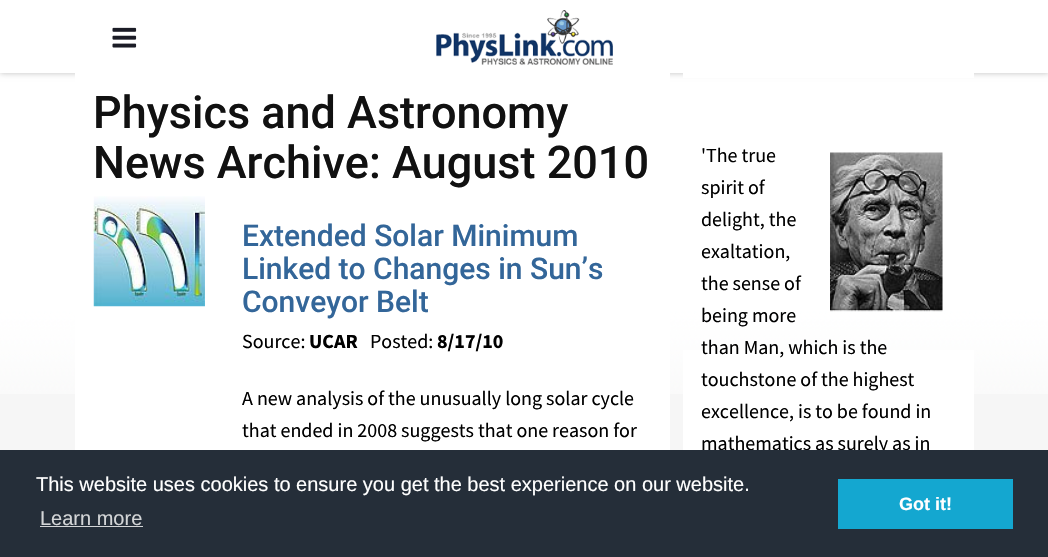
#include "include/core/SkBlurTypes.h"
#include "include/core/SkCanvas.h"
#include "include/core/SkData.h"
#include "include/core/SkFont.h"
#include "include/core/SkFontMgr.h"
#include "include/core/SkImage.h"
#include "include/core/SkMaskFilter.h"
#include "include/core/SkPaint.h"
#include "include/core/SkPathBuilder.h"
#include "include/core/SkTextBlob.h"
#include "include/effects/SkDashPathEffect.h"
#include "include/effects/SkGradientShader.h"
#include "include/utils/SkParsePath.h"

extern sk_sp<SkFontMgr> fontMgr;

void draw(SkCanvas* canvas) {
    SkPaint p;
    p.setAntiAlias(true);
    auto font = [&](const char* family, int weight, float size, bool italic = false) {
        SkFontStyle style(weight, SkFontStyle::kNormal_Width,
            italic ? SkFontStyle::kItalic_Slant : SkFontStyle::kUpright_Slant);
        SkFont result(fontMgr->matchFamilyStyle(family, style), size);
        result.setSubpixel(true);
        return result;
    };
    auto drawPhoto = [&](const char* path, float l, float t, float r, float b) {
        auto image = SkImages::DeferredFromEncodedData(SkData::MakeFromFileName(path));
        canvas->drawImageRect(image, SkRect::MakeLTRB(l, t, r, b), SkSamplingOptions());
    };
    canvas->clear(0xFFF6F6F6);
    drawPhoto("media/1.png", 0, 73, 1048, 394);
    p.setColor(0x40000000);
    p.setMaskFilter(SkMaskFilter::MakeBlur(kNormal_SkBlurStyle, 3));
    canvas->drawRect(SkRect::MakeLTRB(0, 1, 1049, 73), p);
    p.setMaskFilter(nullptr);
    p.setColor(0xFFFFFFFF);
    canvas->drawRect(SkRect::MakeLTRB(0, 0, 1048, 73), p);
    drawPhoto("media/2.png", 112, 27, 137, 48);
    drawPhoto("media/3.png", 436, 10, 613, 65);
    canvas->drawRect(SkRect::MakeLTRB(75, 73, 670, 450), p);
    auto font1 = font("Roboto", 500, 45);
    p.setColor(0xFF111111);
    canvas->drawString("Physics and Astronomy", 93, 128, font1, p);
    canvas->drawString("News Archive: August 2010", 93, 178, font1, p);
    drawPhoto("media/4.png", 93, 196, 205, 307);
    auto font2 = font("Roboto", 500, 30);
    p.setColor(0xFF336699);
    {
        const struct { const char* s; float x, y; } items[] = {
            {"Extended Solar Minimum", 242, 246},
            {"Linked to Changes in Sun’s", 242, 279},
            {"Conveyor Belt", 242, 312},
        };
        for (auto [s, x, y] : items) {
            canvas->drawString(s, x, y, font2, p);
        }
    }
    auto font3 = font("Source Sans Pro", 400, 20);
    p.setColor(0xFF000000);
    canvas->drawString("Source:", 242, 348, font3, p);
    auto font4 = font("Source Sans Pro", 700, 20);
    canvas->drawString("UCAR", 309, 348, font4, p);
    canvas->drawString("Posted:", 370, 348, font3, p);
    canvas->drawString("8/17/10", 437, 348, font4, p);
    canvas->drawString("A new analysis of the unusually long solar cycle", 242, 405, font3, p);
    canvas->drawString("that ended in 2008 suggests that one reason for", 242, 437, font3, p);
    p.setColor(0xFFFFFFFF);
    canvas->drawRect(SkRect::MakeLTRB(683, 73, 974, 78), p);
    canvas->drawRect(SkRect::MakeLTRB(683, 350, 974, 450), p);
    p.setColor(0xFF000000);
    canvas->drawString("'The true", 701, 162, font3, p);
    drawPhoto("media/5.png", 830, 152, 943, 312);
    {
        const struct { const char* s; float x, y; } items[] = {
            {"spirit of", 701, 194},
            {"delight, the", 701, 226},
            {"exaltation,", 701, 258},
            {"the sense of", 701, 290},
            {"being more", 701, 322},
            {"than Man, which is the", 701, 354},
            {"touchstone of the highest", 701, 386},
            {"excellence, is to be found in", 701, 418},
            {"mathematics as surely as in", 701, 450},
        };
        for (auto [s, x, y] : items) {
            canvas->drawString(s, x, y, font3, p);
        }
    }
    p.setColor(0xFF252E39);
    canvas->drawRect(SkRect::MakeLTRB(0, 450, 1048, 557), p);
    auto font5 = font("Liberation Sans", 400, 20);
    p.setColor(0xFFFFFFFF);
    canvas->drawString("This website uses cookies to ensure you get the best experience on our website.", 36, 491, font5, p);
    p.setColor(0xFFD3D5D7);
    canvas->drawString("Learn more", 40, 525, font5, p);
    canvas->drawRect(SkRect::MakeLTRB(40, 526, 143, 527), p);
    p.setColor(0xFF14A7D0);
    canvas->drawRect(SkRect::MakeLTRB(838, 479, 1013, 529), p);
    auto font6 = font("Liberation Sans", 700, 18);
    p.setColor(0xFFFFFFFF);
    canvas->drawString("Got it!", 899, 510, font6, p);
}
